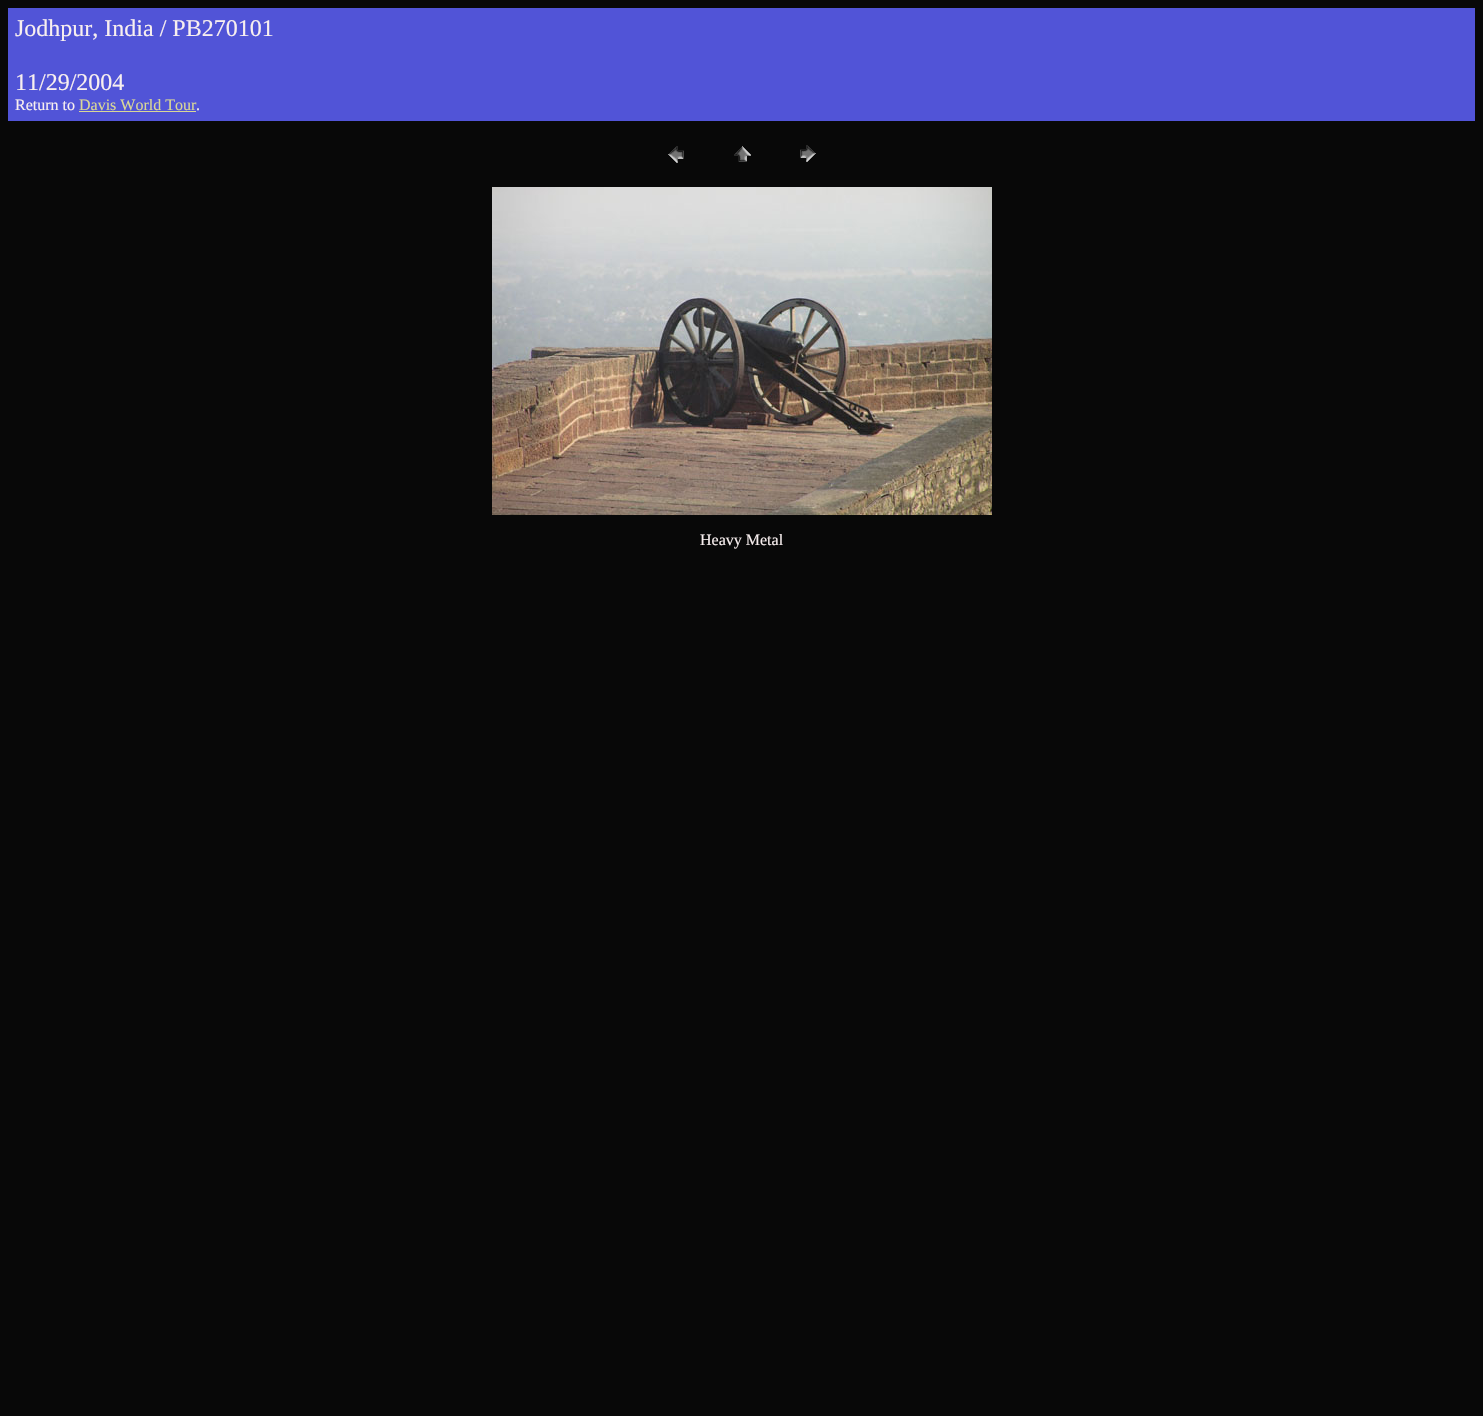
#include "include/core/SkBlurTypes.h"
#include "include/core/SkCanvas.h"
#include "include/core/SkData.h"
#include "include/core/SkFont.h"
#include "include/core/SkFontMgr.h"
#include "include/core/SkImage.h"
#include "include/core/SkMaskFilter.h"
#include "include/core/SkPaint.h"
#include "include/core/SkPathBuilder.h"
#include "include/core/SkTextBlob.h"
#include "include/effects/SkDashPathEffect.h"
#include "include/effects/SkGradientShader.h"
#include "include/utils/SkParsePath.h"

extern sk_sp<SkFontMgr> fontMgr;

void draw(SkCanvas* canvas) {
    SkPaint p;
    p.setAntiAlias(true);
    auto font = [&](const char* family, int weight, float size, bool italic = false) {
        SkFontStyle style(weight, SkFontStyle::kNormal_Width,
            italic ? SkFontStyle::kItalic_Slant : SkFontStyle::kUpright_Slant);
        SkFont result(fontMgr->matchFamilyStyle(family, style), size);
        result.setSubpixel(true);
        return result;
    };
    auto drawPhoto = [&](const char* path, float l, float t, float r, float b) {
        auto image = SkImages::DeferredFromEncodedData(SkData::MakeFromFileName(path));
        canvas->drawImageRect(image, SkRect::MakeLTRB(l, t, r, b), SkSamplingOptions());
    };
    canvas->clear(0xFF080808);
    p.setColor(0xFF5154D7);
    canvas->drawRect(SkRect::MakeLTRB(8, 8, 1475, 121), p);
    auto font1 = font("Liberation Serif", 400, 24);
    p.setColor(0xFFF8EFEF);
    canvas->drawString("Jodhpur, India / PB270101", 15, 36, font1, p);
    canvas->drawString("11/29/2004", 15, 90, font1, p);
    auto font2 = font("Liberation Serif", 400, 16);
    canvas->drawString("Return to", 15, 110, font2, p);
    p.setColor(0xFFD9D797);
    canvas->drawString("Davis World Tour", 79, 110, font2, p);
    p.setColor(0xFFF8EFEF);
    canvas->drawString(".", 196, 110, font2, p);
    p.setColor(0xFFD9D797);
    canvas->drawRect(SkRect::MakeLTRB(79, 111, 196, 112), p);
    drawPhoto("media/1.png", 668, 146, 684, 163);
    drawPhoto("media/2.png", 734, 146, 751, 162);
    drawPhoto("media/3.png", 800, 145, 816, 162);
    drawPhoto("media/4.png", 492, 187, 992, 515);
    p.setColor(0xFFF8EFEF);
    canvas->drawString("Heavy Metal", 700, 545, font2, p);
}
